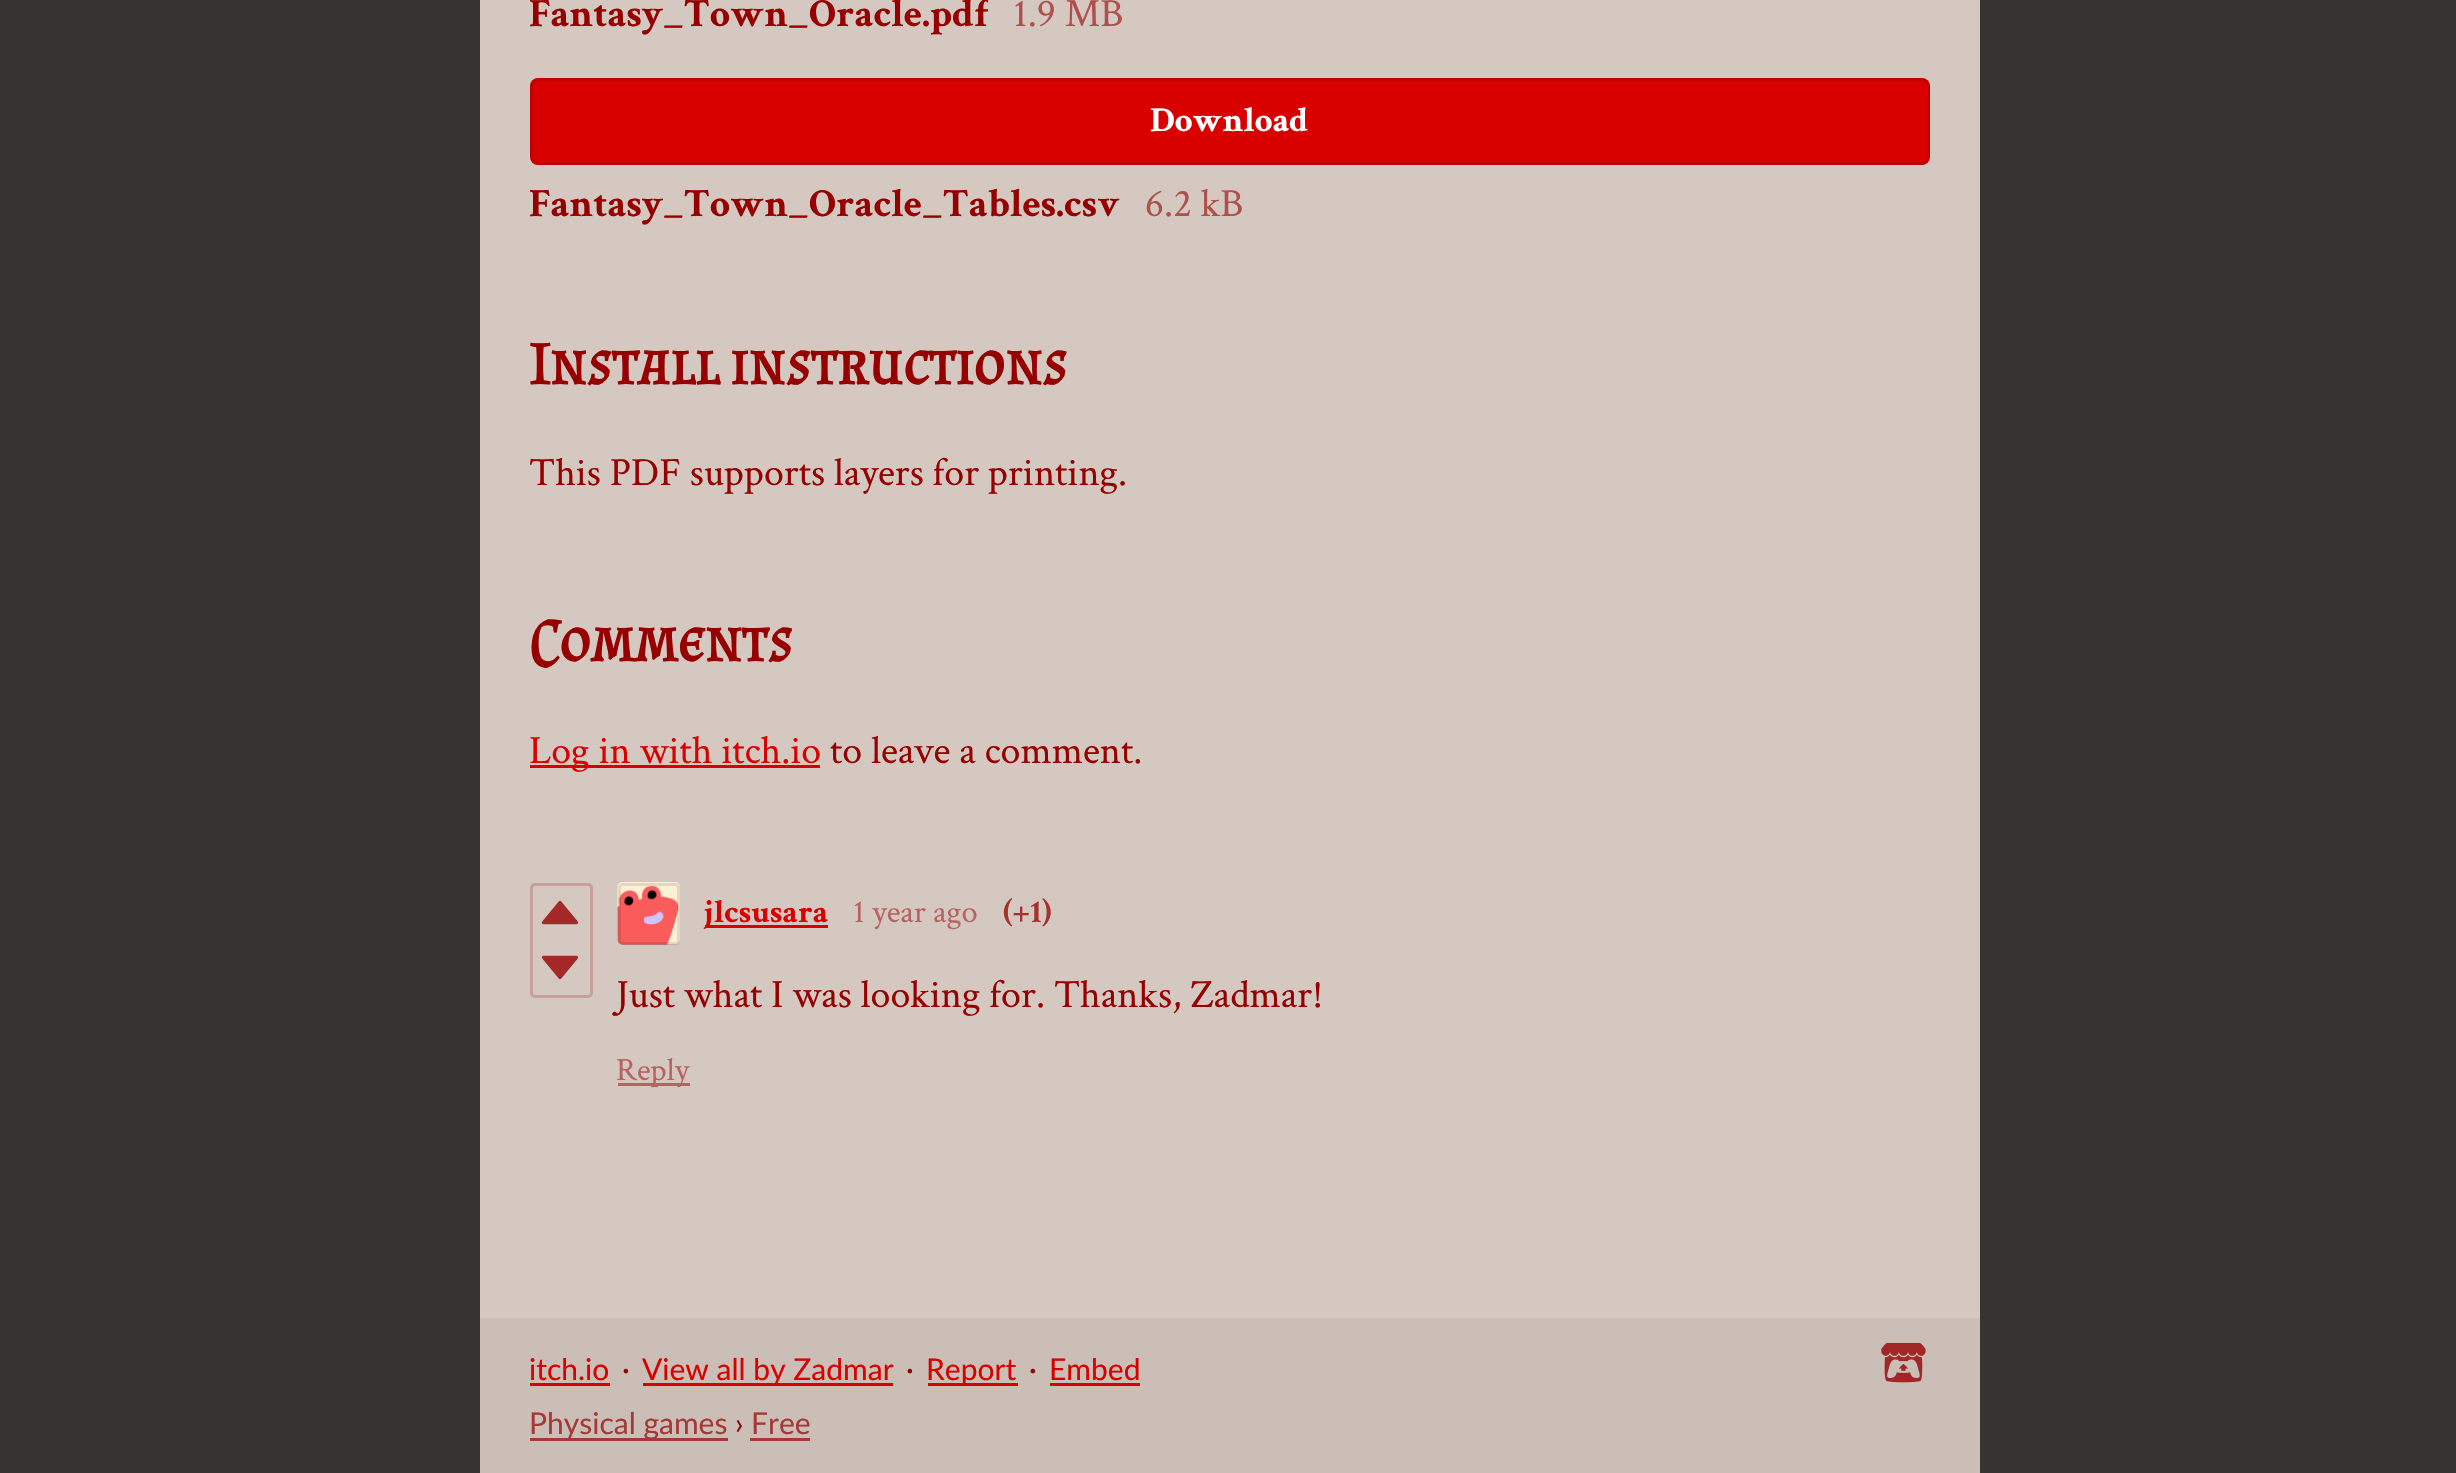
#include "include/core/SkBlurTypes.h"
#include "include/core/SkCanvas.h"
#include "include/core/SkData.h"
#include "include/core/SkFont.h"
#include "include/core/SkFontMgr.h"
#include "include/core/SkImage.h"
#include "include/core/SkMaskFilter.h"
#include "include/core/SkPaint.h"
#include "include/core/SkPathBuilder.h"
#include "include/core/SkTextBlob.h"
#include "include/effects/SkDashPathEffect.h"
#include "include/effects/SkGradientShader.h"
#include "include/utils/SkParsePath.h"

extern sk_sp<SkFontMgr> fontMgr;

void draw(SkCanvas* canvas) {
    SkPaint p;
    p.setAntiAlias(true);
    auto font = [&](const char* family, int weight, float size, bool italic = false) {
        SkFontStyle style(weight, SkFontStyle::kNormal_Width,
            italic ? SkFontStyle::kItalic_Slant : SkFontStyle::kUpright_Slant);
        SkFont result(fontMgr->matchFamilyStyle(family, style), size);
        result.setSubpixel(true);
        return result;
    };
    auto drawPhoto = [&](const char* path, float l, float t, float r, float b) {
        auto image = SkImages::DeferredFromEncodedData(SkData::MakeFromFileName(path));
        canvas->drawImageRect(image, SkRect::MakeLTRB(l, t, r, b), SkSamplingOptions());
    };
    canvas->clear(0xFF373330);
    p.setColor(0xFFD5C8C1);
    canvas->drawRect(SkRect::MakeLTRB(480, 0, 1980, 1318), p);
    canvas->save();
    canvas->clipRect(SkRect::MakeLTRB(530, 0, 988, 40));
    auto font1 = font("Crimson Text", 700, 40);
    p.setColor(0xFF960000);
    canvas->drawString("Fantasy_Town_Oracle.pdf", 529, 26, font1, p);
    canvas->restore();
    auto font2 = font("Crimson Text", 400, 40);
    p.setColor(0xFFAF504D);
    canvas->drawString("1.9 MB", 1013, 26, font2, p);
    p.setColor(0xFFD90000);
    canvas->drawRoundRect(SkRect::MakeLTRB(530, 78, 1930, 165), 8, 8, p);
    p.setStyle(SkPaint::kStroke_Style);
    p.setStrokeWidth(3);
    p.setColor(0x1A000000);
    canvas->drawRoundRect(SkRect::MakeLTRB(531.5f, 79.5f, 1928.5f, 163.5f), 6.5f, 6.5f, p);
    auto font3 = font("Crimson Text", 700, 35);
    p.setStyle(SkPaint::kFill_Style);
    p.setColor(0xFFFFFFFF);
    canvas->drawString("Download", 1150, 131, font3, p);
    canvas->save();
    canvas->clipRect(SkRect::MakeLTRB(530, 178, 1120, 230));
    p.setColor(0xFF960000);
    canvas->drawString("Fantasy_Town_Oracle_Tables.csv", 529, 216, font1, p);
    canvas->restore();
    p.setColor(0xFFAF504D);
    canvas->drawString("6.2 kB", 1145, 216, font2, p);
    auto font4 = font("Almendra SC", 700, 60);
    p.setColor(0xFF960000);
    canvas->drawString("Install instructions", 529, 384, font4, p);
    canvas->drawString("This PDF supports layers for printing.", 529, 485, font2, p);
    canvas->drawString("Comments", 529, 661, font4, p);
    p.setColor(0xFFD90000);
    canvas->drawRect(SkRect::MakeLTRB(530, 765, 820, 768), p);
    canvas->drawString("Log in with itch.io", 529, 763, font2, p);
    p.setColor(0xFF960000);
    canvas->drawString("to leave a comment.", 830, 763, font2, p);
    p.setStyle(SkPaint::kStroke_Style);
    p.setColor(0xFFC8A09A);
    canvas->drawRoundRect(SkRect::MakeLTRB(531.5f, 884.5f, 591.5f, 996.5f), 3.5f, 3.5f, p);
    p.setStyle(SkPaint::kFill_Style);
    p.setColor(0xFFA32827);
    canvas->drawPath(SkPathBuilder().moveTo(543.5f, 922.5f).lineTo(560, 902.5f).lineTo(576.5f, 922.5f).close().detach(), p);
    p.setStyle(SkPaint::kStroke_Style);
    p.setStrokeWidth(3.3f);
    p.setStrokeJoin(SkPaint::kRound_Join);
    canvas->drawPath(SkPathBuilder().moveTo(543.5f, 922.5f).lineTo(560, 902.5f).lineTo(576.5f, 922.5f).close().detach(), p);
    p.setStyle(SkPaint::kFill_Style);
    canvas->drawPath(SkPathBuilder().moveTo(543.5f, 957.5f).lineTo(560, 977.5f).lineTo(576.5f, 957.5f).close().detach(), p);
    p.setStyle(SkPaint::kStroke_Style);
    canvas->drawPath(SkPathBuilder().moveTo(543.5f, 957.5f).lineTo(560, 977.5f).lineTo(576.5f, 957.5f).close().detach(), p);
    p.setStyle(SkPaint::kFill_Style);
    p.setColor(0xFFAAA09A);
    canvas->drawRoundRect(SkRect::MakeLTRB(618, 883, 680, 945), 5, 5, p);
    drawPhoto("media/1.png", 617, 882, 680, 945);
    p.setStyle(SkPaint::kStroke_Style);
    p.setStrokeWidth(3);
    p.setStrokeJoin(SkPaint::kMiter_Join);
    p.setColor(0x1A000000);
    canvas->drawRoundRect(SkRect::MakeLTRB(619.5f, 884.5f, 678.5f, 943.5f), 3.5f, 3.5f, p);
    p.setStyle(SkPaint::kFill_Style);
    p.setColor(0xFFD90000);
    canvas->drawRect(SkRect::MakeLTRB(705, 925, 828, 928), p);
    auto font5 = font("Crimson Text", 700, 32.5f);
    canvas->drawString("jlcsusara", 704, 922, font5, p);
    auto font6 = font("Crimson Text", 400, 32.5f);
    p.setColor(0xFFB66461);
    canvas->drawString("1 year ago", 853, 922, font6, p);
    p.setColor(0xFFA63230);
    canvas->drawString("(+1)", 1003, 922, font5, p);
    p.setColor(0xFF960000);
    canvas->drawString("Just what I was looking for. Thanks, Zadmar!", 616, 1007, font2, p);
    p.setColor(0xFFB66461);
    canvas->drawRect(SkRect::MakeLTRB(618, 1083, 690, 1086), p);
    canvas->drawString("Reply", 616, 1080, font6, p);
    p.setColor(0xFFCABEB7);
    canvas->drawRect(SkRect::MakeLTRB(480, 1318, 1980, 1473), p);
    auto font7 = font("Lato", 400, 30);
    p.setColor(0xFFD90000);
    canvas->drawString("itch.io", 529, 1380, font7, p);
    canvas->drawRect(SkRect::MakeLTRB(530, 1383, 610, 1386), p);
    p.setColor(0xFF960000);
    canvas->drawString("·", 622, 1380, font7, p);
    p.setColor(0xFFD90000);
    canvas->drawRect(SkRect::MakeLTRB(643, 1383, 893, 1386), p);
    canvas->drawString("View all by Zadmar", 642, 1380, font7, p);
    p.setColor(0xFF960000);
    canvas->drawString("·", 906, 1380, font7, p);
    p.setColor(0xFFD90000);
    canvas->drawRect(SkRect::MakeLTRB(928, 1383, 1018, 1386), p);
    canvas->drawString("Report", 926, 1380, font7, p);
    p.setColor(0xFF960000);
    canvas->drawString("·", 1029, 1380, font7, p);
    p.setColor(0xFFD90000);
    canvas->drawString("Embed", 1049, 1380, font7, p);
    canvas->drawRect(SkRect::MakeLTRB(1050, 1383, 1140, 1386), p);
    drawPhoto("media/2.png", 1881, 1343, 1926, 1383);
    p.setColor(0xFFA63937);
    canvas->drawRect(SkRect::MakeLTRB(530, 1438, 728, 1441), p);
    canvas->drawString("Physical games", 529, 1434, font7, p);
    p.setColor(0xFF960000);
    canvas->drawString("›", 735, 1434, font7, p);
    p.setColor(0xFFA63937);
    canvas->drawString("Free", 751, 1434, font7, p);
    canvas->drawRect(SkRect::MakeLTRB(750, 1438, 810, 1441), p);
}
